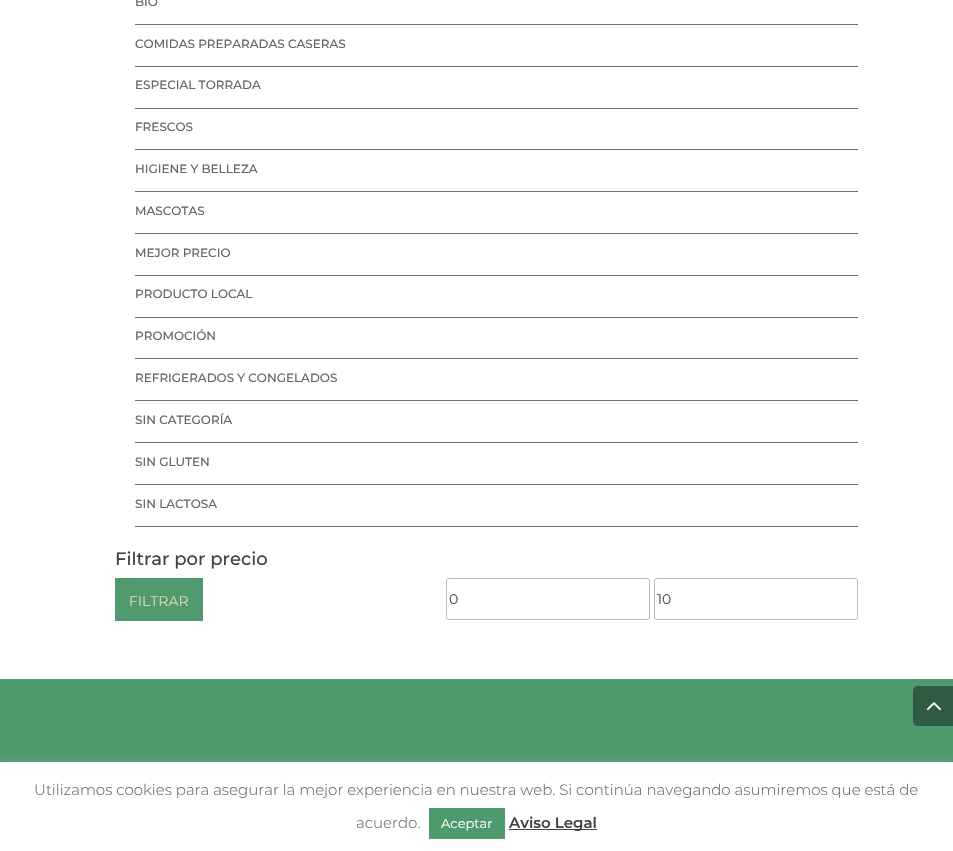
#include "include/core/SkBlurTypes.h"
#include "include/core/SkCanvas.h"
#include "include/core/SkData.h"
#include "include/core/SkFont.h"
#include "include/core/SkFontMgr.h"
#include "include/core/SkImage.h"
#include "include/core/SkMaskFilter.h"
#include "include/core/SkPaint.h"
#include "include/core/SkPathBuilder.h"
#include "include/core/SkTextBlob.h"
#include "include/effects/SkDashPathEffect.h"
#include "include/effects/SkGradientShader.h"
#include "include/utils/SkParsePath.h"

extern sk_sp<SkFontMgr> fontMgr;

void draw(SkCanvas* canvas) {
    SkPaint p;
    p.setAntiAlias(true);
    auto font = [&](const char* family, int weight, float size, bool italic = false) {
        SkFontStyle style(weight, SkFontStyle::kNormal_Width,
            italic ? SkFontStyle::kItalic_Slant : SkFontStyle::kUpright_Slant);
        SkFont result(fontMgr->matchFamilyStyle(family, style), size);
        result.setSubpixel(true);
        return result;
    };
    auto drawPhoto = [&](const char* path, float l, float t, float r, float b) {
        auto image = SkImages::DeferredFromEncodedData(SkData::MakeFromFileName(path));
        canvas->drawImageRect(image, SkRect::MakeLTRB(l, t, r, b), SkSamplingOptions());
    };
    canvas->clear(0xFFFFFFFF);
    p.setColor(0xFF707070);
    canvas->drawRect(SkRect::MakeLTRB(135, 24, 858, 25), p);
    auto font1 = font("Montserrat", 500, 12);
    p.setColor(0xFF666666);
    canvas->drawString("BIO", 135, 6, font1, p);
    p.setColor(0xFF707070);
    canvas->drawRect(SkRect::MakeLTRB(135, 66, 858, 67), p);
    p.setColor(0xFF666666);
    canvas->drawString("COMIDAS PREPARADAS CASERAS", 135, 48, font1, p);
    p.setColor(0xFF707070);
    canvas->drawRect(SkRect::MakeLTRB(135, 108, 858, 109), p);
    p.setColor(0xFF666666);
    canvas->drawString("ESPECIAL TORRADA", 135, 89, font1, p);
    p.setColor(0xFF707070);
    canvas->drawRect(SkRect::MakeLTRB(135, 149, 858, 150), p);
    p.setColor(0xFF666666);
    canvas->drawString("FRESCOS", 135, 131, font1, p);
    p.setColor(0xFF707070);
    canvas->drawRect(SkRect::MakeLTRB(135, 191, 858, 192), p);
    p.setColor(0xFF666666);
    canvas->drawString("HIGIENE Y BELLEZA", 135, 173, font1, p);
    p.setColor(0xFF707070);
    canvas->drawRect(SkRect::MakeLTRB(135, 233, 858, 234), p);
    p.setColor(0xFF666666);
    canvas->drawString("MASCOTAS", 135, 215, font1, p);
    p.setColor(0xFF707070);
    canvas->drawRect(SkRect::MakeLTRB(135, 275, 858, 276), p);
    p.setColor(0xFF666666);
    canvas->drawString("MEJOR PRECIO", 135, 257, font1, p);
    p.setColor(0xFF707070);
    canvas->drawRect(SkRect::MakeLTRB(135, 317, 858, 318), p);
    p.setColor(0xFF666666);
    canvas->drawString("PRODUCTO LOCAL", 135, 298, font1, p);
    p.setColor(0xFF707070);
    canvas->drawRect(SkRect::MakeLTRB(135, 358, 858, 359), p);
    p.setColor(0xFF666666);
    canvas->drawString("PROMOCIÓN", 135, 340, font1, p);
    p.setColor(0xFF707070);
    canvas->drawRect(SkRect::MakeLTRB(135, 400, 858, 401), p);
    p.setColor(0xFF666666);
    canvas->drawString("REFRIGERADOS Y CONGELADOS", 135, 382, font1, p);
    p.setColor(0xFF707070);
    canvas->drawRect(SkRect::MakeLTRB(135, 442, 858, 443), p);
    p.setColor(0xFF666666);
    canvas->drawString("SIN CATEGORÍA", 135, 424, font1, p);
    p.setColor(0xFF707070);
    canvas->drawRect(SkRect::MakeLTRB(135, 484, 858, 485), p);
    p.setColor(0xFF666666);
    canvas->drawString("SIN GLUTEN", 135, 466, font1, p);
    p.setColor(0xFF707070);
    canvas->drawRect(SkRect::MakeLTRB(135, 526, 858, 527), p);
    p.setColor(0xFF666666);
    canvas->drawString("SIN LACTOSA", 135, 508, font1, p);
    auto font2 = font("Montserrat", 500, 18);
    p.setColor(0xFF424242);
    canvas->drawString("Filtrar por precio", 115, 565, font2, p);
    p.setColor(0xFF51996E);
    canvas->drawRect(SkRect::MakeLTRB(115, 578, 203, 621), p);
    auto font3 = font("Montserrat", 400, 14);
    p.setColor(0xFFDDD9AF);
    canvas->drawString("FILTRAR", 129, 606, font3, p);
    p.setStyle(SkPaint::kStroke_Style);
    p.setStrokeWidth(1);
    p.setColor(0xFFBBBBBB);
    canvas->drawRoundRect(SkRect::MakeLTRB(446.5f, 578.5f, 649.5f, 619.5f), 2.5f, 2.5f, p);
    p.setStyle(SkPaint::kFill_Style);
    p.setColor(0xFF4E4E4E);
    canvas->drawString("0", 449, 604, font3, p);
    p.setStyle(SkPaint::kStroke_Style);
    p.setColor(0xFFBBBBBB);
    canvas->drawRoundRect(SkRect::MakeLTRB(654.5f, 578.5f, 857.5f, 619.5f), 2.5f, 2.5f, p);
    p.setStyle(SkPaint::kFill_Style);
    p.setColor(0xFF4E4E4E);
    canvas->drawString("10", 657, 604, font3, p);
    p.setColor(0xFF4E9A6D);
    canvas->drawRect(SkRect::MakeLTRB(0, 679, 953, 762), p);
    p.setColor(0xFF2F5C41);
    canvas->drawPath(SkPathBuilder().moveTo(918, 686).lineTo(953, 686).lineTo(953, 726).lineTo(918, 726).cubicTo(915, 726, 913, 724, 913, 721).lineTo(913, 691).cubicTo(913, 688, 915, 686, 918, 686).close().detach(), p);
    drawPhoto("media/1.png", 926, 702, 941, 711);
    p.setColor(0x4DACABAB);
    p.setMaskFilter(SkMaskFilter::MakeBlur(kNormal_SkBlurStyle, 5));
    canvas->drawRect(SkRect::MakeLTRB(0, 761, 953, 850), p);
    p.setMaskFilter(nullptr);
    p.setColor(0xFFFFFFFF);
    canvas->drawRect(SkRect::MakeLTRB(0, 762, 953, 851), p);
    auto font4 = font("Montserrat", 300, 15);
    p.setColor(0xFF666666);
    canvas->drawString("Utilizamos cookies para asegurar la mejor experiencia en nuestra web. Si continúa navegando asumiremos que está de", 34, 795, font4, p);
    canvas->drawString("acuerdo.", 356, 828, font4, p);
    p.setColor(0xFF4E9A6D);
    canvas->drawRect(SkRect::MakeLTRB(429, 808, 505, 839), p);
    auto font5 = font("Montserrat", 400, 13);
    p.setColor(0xFFFFFFFF);
    canvas->drawString("Aceptar", 441, 828, font5, p);
    p.setColor(0xFF444444);
    canvas->drawRect(SkRect::MakeLTRB(509, 829, 597, 830), p);
    auto font6 = font("Montserrat", 600, 15);
    p.setColor(0xFF424242);
    canvas->drawString("Aviso Legal", 509, 828, font6, p);
}
